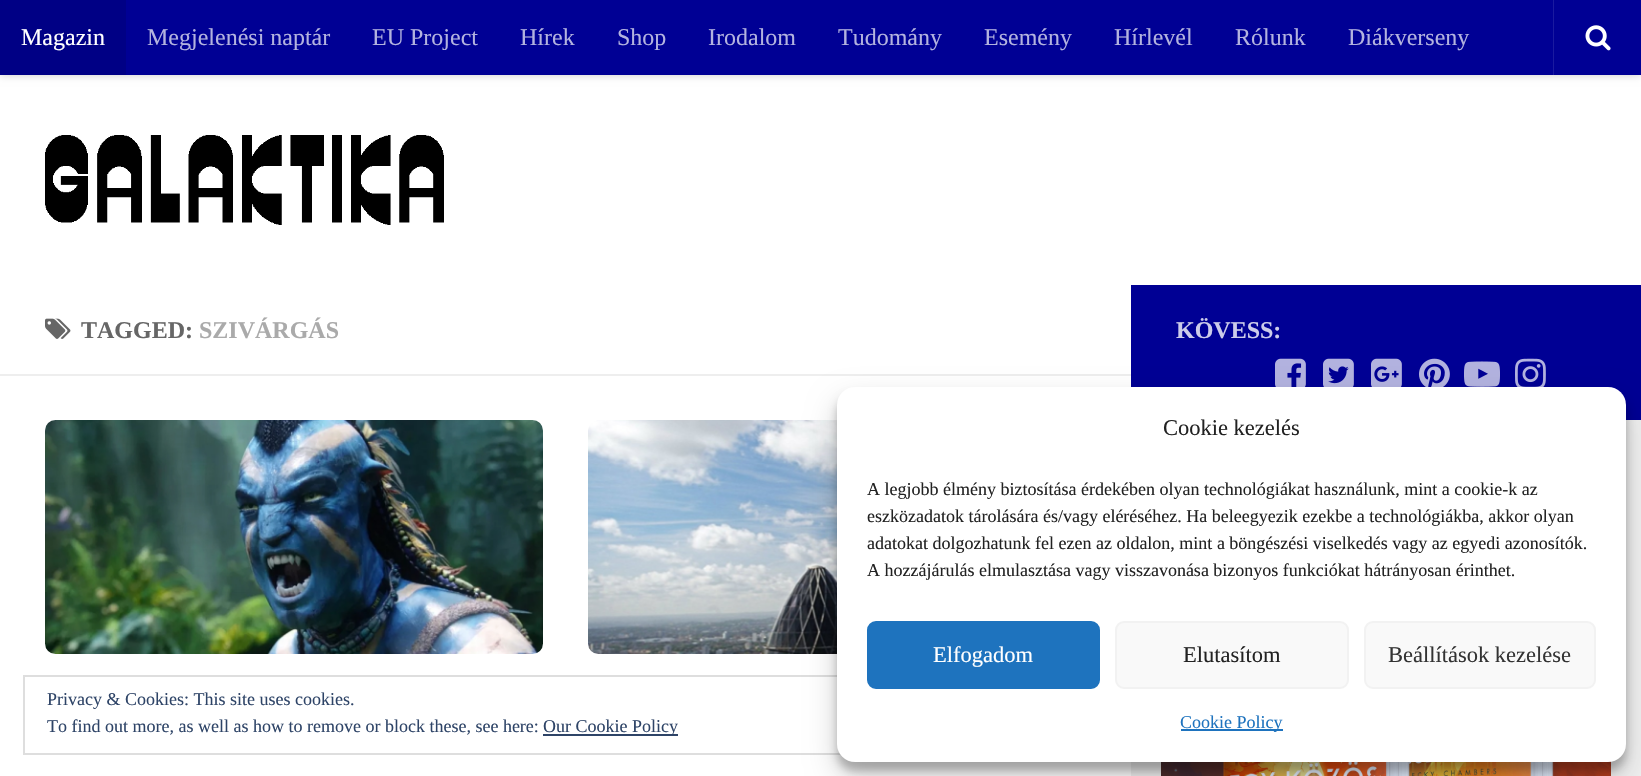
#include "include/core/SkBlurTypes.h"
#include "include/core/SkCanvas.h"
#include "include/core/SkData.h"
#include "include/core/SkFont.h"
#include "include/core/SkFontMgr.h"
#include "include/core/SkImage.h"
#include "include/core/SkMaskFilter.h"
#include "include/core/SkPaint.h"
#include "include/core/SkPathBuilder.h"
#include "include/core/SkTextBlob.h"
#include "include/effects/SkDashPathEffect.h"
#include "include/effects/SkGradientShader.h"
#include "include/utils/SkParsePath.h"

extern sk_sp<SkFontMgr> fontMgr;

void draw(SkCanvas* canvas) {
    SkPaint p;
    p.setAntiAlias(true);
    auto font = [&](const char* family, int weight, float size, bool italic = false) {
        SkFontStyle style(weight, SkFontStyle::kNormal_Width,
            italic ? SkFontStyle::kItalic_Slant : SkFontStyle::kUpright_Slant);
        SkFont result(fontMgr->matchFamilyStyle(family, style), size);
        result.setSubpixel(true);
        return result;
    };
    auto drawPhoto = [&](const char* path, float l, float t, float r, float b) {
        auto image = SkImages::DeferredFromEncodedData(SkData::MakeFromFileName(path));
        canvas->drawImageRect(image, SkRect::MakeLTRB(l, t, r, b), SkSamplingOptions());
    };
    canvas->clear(0xFFFFFFFF);
    p.setColor(0x33000000);
    p.setMaskFilter(SkMaskFilter::MakeBlur(kNormal_SkBlurStyle, 4));
    canvas->drawRect(SkRect::MakeLTRB(0, 0, 1641, 75), p);
    p.setMaskFilter(nullptr);
    p.setColor(0xFF000094);
    canvas->drawRect(SkRect::MakeLTRB(126, 0, 1641, 75), p);
    p.setColor(0xFF000085);
    canvas->drawRect(SkRect::MakeLTRB(0, 0, 126, 75), p);
    auto font1 = font("Liberation Serif", 400, 24);
    p.setColor(0xFFFFFFFF);
    canvas->drawString("Magazin", 21, 45, font1, p);
    p.setColor(0xFFB3B3DF);
    {
        const struct { const char* s; float x, y; } items[] = {
            {"Megjelenési naptár", 147, 45},
            {"EU Project", 372, 45},
            {"Hírek", 520, 45},
            {"Shop", 617, 45},
            {"Irodalom", 708, 45},
            {"Tudomány", 838, 45},
            {"Esemény", 984, 45},
            {"Hírlevél", 1114, 45},
            {"Rólunk", 1235, 45},
            {"Diákverseny", 1348, 45},
        };
        for (auto [s, x, y] : items) {
            canvas->drawString(s, x, y, font1, p);
        }
    }
    p.setColor(0xFF1A1A9F);
    canvas->drawRect(SkRect::MakeLTRB(1553, 0, 1554, 75), p);
    drawPhoto("media/1.png", 1585, 25, 1611, 51);
    drawPhoto("media/2.png", 45, 135, 444, 225);
    p.setColor(0xFFF0F0F0);
    canvas->drawRect(SkRect::MakeLTRB(1131, 420, 1641, 776), p);
    p.setColor(0xFFEEEEEE);
    canvas->drawRect(SkRect::MakeLTRB(0, 374, 1131, 376), p);
    drawPhoto("media/3.png", 45, 318, 71, 339);
    auto font2 = font("Liberation Serif", 700, 24);
    p.setColor(0xFF666666);
    canvas->drawString("TAGGED:", 81, 338, font2, p);
    p.setColor(0xFFAAAAAA);
    canvas->drawString("SZIVÁRGÁS", 199, 338, font2, p);
    drawPhoto("media/4.png", 45, 420, 543, 654);
    drawPhoto("media/5.png", 588, 420, 837, 654);
    p.setColor(0xFF000094);
    canvas->drawRect(SkRect::MakeLTRB(1131, 285, 1641, 420), p);
    p.setColor(0xFFCCCCEA);
    canvas->drawString("KÖVESS:", 1176, 338, font2, p);
    drawPhoto("media/6.png", 1275, 358, 1306, 387);
    drawPhoto("media/7.png", 1323, 358, 1354, 387);
    drawPhoto("media/8.png", 1371, 358, 1402, 387);
    drawPhoto("media/9.png", 1419, 358, 1450, 387);
    drawPhoto("media/10.png", 1464, 361, 1500, 387);
    drawPhoto("media/11.png", 1515, 358, 1546, 387);
    drawPhoto("media/12.png", 1161, 761, 1611, 776);
    p.setStyle(SkPaint::kStroke_Style);
    p.setStrokeWidth(2);
    p.setColor(0xFFDEDEDE);
    canvas->drawRect(SkRect::MakeLTRB(24, 676, 1618, 754), p);
    auto font3 = font("Liberation Serif", 400, 18);
    p.setStyle(SkPaint::kFill_Style);
    p.setColor(0xFF2E4467);
    canvas->drawString("Privacy & Cookies: This site uses cookies.", 47, 705, font3, p);
    canvas->drawString("To find out more, as well as how to remove or block these, see here:", 47, 732, font3, p);
    canvas->drawRect(SkRect::MakeLTRB(543, 734, 678, 736), p);
    canvas->drawString("Our Cookie Policy", 543, 732, font3, p);
    p.setColor(0x3B000000);
    p.setMaskFilter(SkMaskFilter::MakeBlur(kNormal_SkBlurStyle, 4.5f));
    canvas->drawRoundRect(SkRect::MakeLTRB(837, 396, 1626, 771), 18, 18, p);
    p.setMaskFilter(nullptr);
    p.setColor(0x30000000);
    p.setMaskFilter(SkMaskFilter::MakeBlur(kNormal_SkBlurStyle, 15));
    canvas->drawRoundRect(SkRect::MakeLTRB(837, 402, 1626, 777), 18, 18, p);
    p.setMaskFilter(nullptr);
    p.setColor(0xFFFFFFFF);
    canvas->drawRoundRect(SkRect::MakeLTRB(837, 387, 1626, 762), 18, 18, p);
    auto font4 = font("Liberation Serif", 400, 22.5f);
    p.setColor(0xFF222222);
    canvas->drawString("Cookie kezelés", 1163, 435, font4, p);
    {
        const struct { const char* s; float x, y; } items[] = {
            {"A legjobb élmény biztosítása érdekében olyan technológiákat használunk, mint a cookie-k az", 867, 495},
            {"eszközadatok tárolására és/vagy eléréséhez. Ha beleegyezik ezekbe a technológiákba, akkor olyan", 867, 522},
            {"adatokat dolgozhatunk fel ezen az oldalon, mint a böngészési viselkedés vagy az egyedi azonosítók.", 867, 549},
            {"A hozzájárulás elmulasztása vagy visszavonása bizonyos funkciókat hátrányosan érinthet.", 867, 576},
        };
        for (auto [s, x, y] : items) {
            canvas->drawString(s, x, y, font3, p);
        }
    }
    p.setColor(0xFF1E73BE);
    canvas->drawRoundRect(SkRect::MakeLTRB(868, 622, 1099, 688), 8, 8, p);
    p.setStyle(SkPaint::kStroke_Style);
    canvas->drawRoundRect(SkRect::MakeLTRB(868, 622, 1099, 688), 8, 8, p);
    p.setStyle(SkPaint::kFill_Style);
    p.setColor(0xFFFFFFFF);
    canvas->drawString("Elfogadom", 933, 662, font4, p);
    p.setColor(0xFFF9F9F9);
    canvas->drawRoundRect(SkRect::MakeLTRB(1116, 622, 1348, 688), 8, 8, p);
    p.setStyle(SkPaint::kStroke_Style);
    p.setColor(0xFFF2F2F2);
    canvas->drawRoundRect(SkRect::MakeLTRB(1116, 622, 1348, 688), 8, 8, p);
    p.setStyle(SkPaint::kFill_Style);
    p.setColor(0xFF222222);
    canvas->drawString("Elutasítom", 1183, 662, font4, p);
    p.setColor(0xFFF9F9F9);
    canvas->drawRoundRect(SkRect::MakeLTRB(1365, 622, 1595, 688), 8, 8, p);
    p.setStyle(SkPaint::kStroke_Style);
    p.setColor(0xFFF2F2F2);
    canvas->drawRoundRect(SkRect::MakeLTRB(1365, 622, 1595, 688), 8, 8, p);
    p.setStyle(SkPaint::kFill_Style);
    p.setColor(0xFF333333);
    canvas->drawString("Beállítások kezelése", 1388, 662, font4, p);
    p.setColor(0xFF1E73BE);
    canvas->drawRect(SkRect::MakeLTRB(1181, 729, 1283, 731), p);
    canvas->drawString("Cookie Policy", 1180, 728, font3, p);
}
